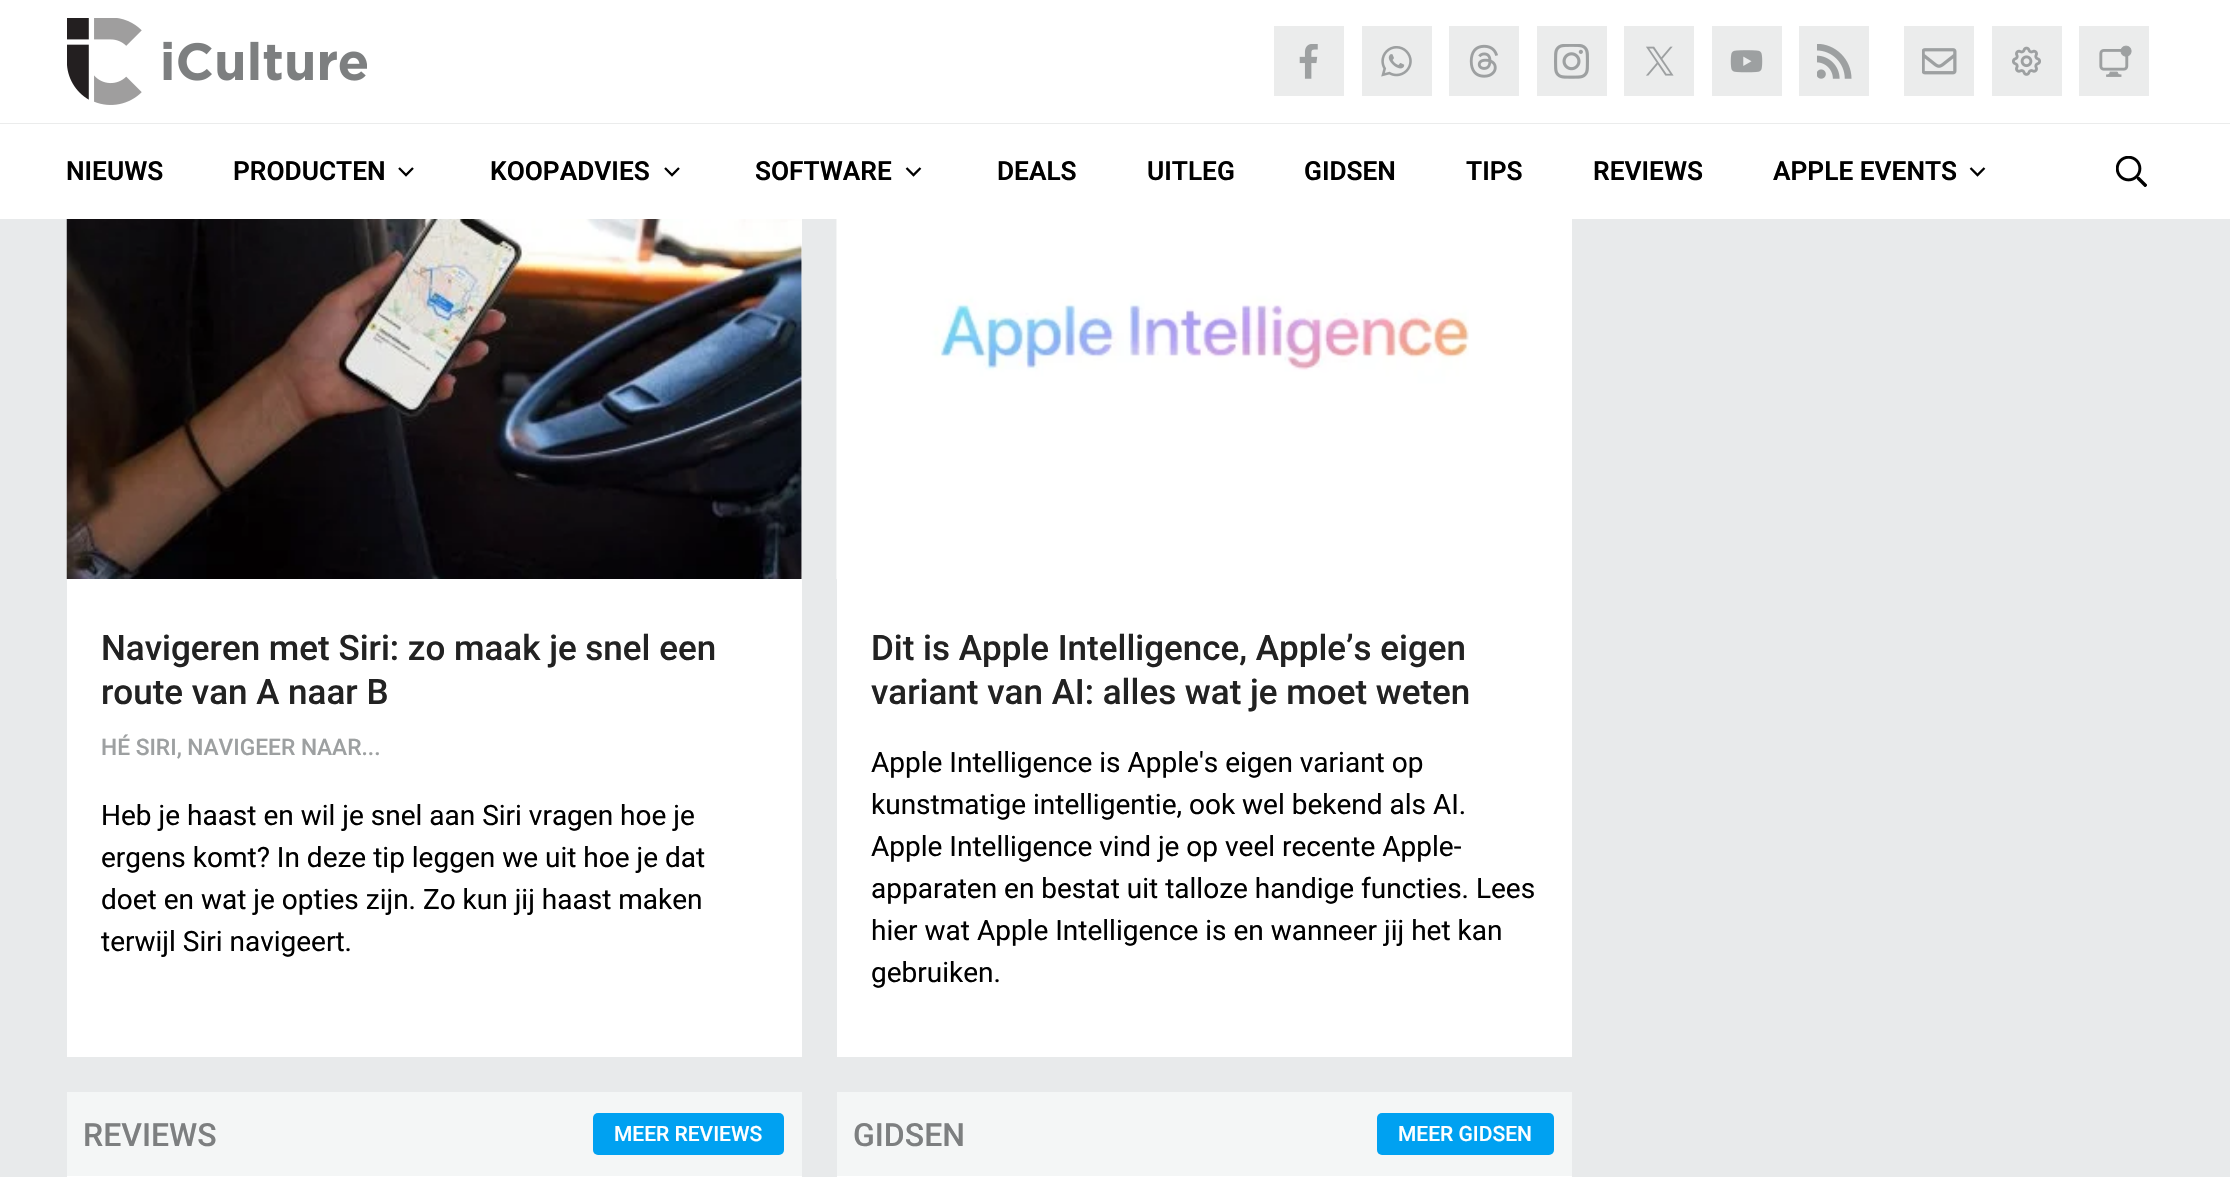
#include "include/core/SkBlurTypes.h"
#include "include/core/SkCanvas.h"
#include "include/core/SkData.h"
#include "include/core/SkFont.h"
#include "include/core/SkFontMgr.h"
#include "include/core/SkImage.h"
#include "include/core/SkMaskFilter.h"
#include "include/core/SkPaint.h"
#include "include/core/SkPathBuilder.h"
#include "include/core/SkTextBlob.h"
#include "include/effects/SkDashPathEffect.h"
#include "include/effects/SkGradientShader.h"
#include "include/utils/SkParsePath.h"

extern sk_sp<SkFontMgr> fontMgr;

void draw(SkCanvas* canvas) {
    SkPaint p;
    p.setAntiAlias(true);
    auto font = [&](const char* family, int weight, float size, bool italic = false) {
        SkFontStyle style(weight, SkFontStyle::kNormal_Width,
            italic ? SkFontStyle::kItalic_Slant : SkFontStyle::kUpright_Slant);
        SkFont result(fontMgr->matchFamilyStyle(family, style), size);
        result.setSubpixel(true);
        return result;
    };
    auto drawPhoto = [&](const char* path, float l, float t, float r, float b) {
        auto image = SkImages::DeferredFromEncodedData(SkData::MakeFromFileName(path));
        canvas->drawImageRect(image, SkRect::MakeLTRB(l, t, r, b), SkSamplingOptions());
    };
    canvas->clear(0xFFE8EAEB);
    p.setColor(0xFFFFFFFF);
    canvas->drawRect(SkRect::MakeLTRB(0, 0, 2230, 123), p);
    p.setColor(0xFFEBECEC);
    canvas->drawRect(SkRect::MakeLTRB(0, 123, 2230, 124), p);
    drawPhoto("media/1.png", 67, 18, 367, 105);
    canvas->drawRect(SkRect::MakeLTRB(1274, 26, 1344, 96), p);
    drawPhoto("media/2.png", 1299, 44, 1318, 79);
    canvas->drawRect(SkRect::MakeLTRB(1362, 26, 1432, 96), p);
    drawPhoto("media/3.png", 1381, 46, 1412, 77);
    canvas->drawRect(SkRect::MakeLTRB(1449, 26, 1519, 96), p);
    drawPhoto("media/4.png", 1469, 44, 1498, 78);
    canvas->drawRect(SkRect::MakeLTRB(1537, 26, 1607, 96), p);
    drawPhoto("media/5.png", 1554, 44, 1589, 79);
    canvas->drawRect(SkRect::MakeLTRB(1624, 26, 1694, 96), p);
    drawPhoto("media/6.png", 1646, 46, 1674, 76);
    canvas->drawRect(SkRect::MakeLTRB(1712, 26, 1782, 96), p);
    drawPhoto("media/7.png", 1730, 50, 1763, 73);
    canvas->drawRect(SkRect::MakeLTRB(1799, 26, 1869, 96), p);
    drawPhoto("media/8.png", 1817, 44, 1852, 79);
    canvas->drawRect(SkRect::MakeLTRB(1904, 26, 1974, 96), p);
    drawPhoto("media/9.png", 1922, 48, 1957, 75);
    canvas->drawRect(SkRect::MakeLTRB(1992, 26, 2062, 96), p);
    drawPhoto("media/10.png", 2012, 46, 2041, 76);
    canvas->drawRect(SkRect::MakeLTRB(2079, 26, 2149, 96), p);
    drawPhoto("media/11.png", 2099, 45, 2132, 77);
    p.setColor(0xFFFFFFFF);
    canvas->drawRect(SkRect::MakeLTRB(0, 124, 2230, 219), p);
    auto font1 = font("Roboto", 600, 26.25f);
    p.setColor(0xFF000000);
    canvas->drawString("NIEUWS", 66, 180, font1, p);
    canvas->drawString("PRODUCTEN", 233, 180, font1, p);
    p.setStyle(SkPaint::kStroke_Style);
    p.setStrokeWidth(2.3f);
    canvas->drawPath(SkPathBuilder().moveTo(399, 168).lineTo(406, 175).lineTo(413, 168).detach(), p);
    p.setStyle(SkPaint::kFill_Style);
    canvas->drawString("KOOPADVIES", 490, 180, font1, p);
    p.setStyle(SkPaint::kStroke_Style);
    canvas->drawPath(SkPathBuilder().moveTo(665, 168).lineTo(672, 175).lineTo(679, 168).detach(), p);
    p.setStyle(SkPaint::kFill_Style);
    canvas->drawString("SOFTWARE", 755, 180, font1, p);
    p.setStyle(SkPaint::kStroke_Style);
    canvas->drawPath(SkPathBuilder().moveTo(906.5f, 168).lineTo(913.5f, 175).lineTo(920.5f, 168).detach(), p);
    p.setStyle(SkPaint::kFill_Style);
    {
        const struct { const char* s; float x, y; } items[] = {
            {"DEALS", 997, 180},
            {"UITLEG", 1147, 180},
            {"GIDSEN", 1304, 180},
            {"TIPS", 1466, 180},
            {"REVIEWS", 1593, 180},
            {"APPLE EVENTS", 1773, 180},
        };
        for (auto [s, x, y] : items) {
            canvas->drawString(s, x, y, font1, p);
        }
    }
    p.setStyle(SkPaint::kStroke_Style);
    canvas->drawPath(SkPathBuilder().moveTo(1970.5f, 168).lineTo(1977.5f, 175).lineTo(1984.5f, 168).detach(), p);
    drawPhoto("media/12.png", 2116, 156, 2147, 187);
    p.setStyle(SkPaint::kFill_Style);
    p.setColor(0xFFFFFFFF);
    canvas->drawRect(SkRect::MakeLTRB(67, 219, 802, 1057), p);
    drawPhoto("media/13.png", 66, 219, 802, 579);
    auto font2 = font("Roboto", 500, 35);
    p.setColor(0xFF222222);
    canvas->drawString("Navigeren met Siri: zo maak je snel een", 101, 660, font2, p);
    canvas->drawString("route van A naar B", 101, 704, font2, p);
    auto font3 = font("Roboto", 500, 22.75f);
    p.setColor(0xFF9DA0A1);
    canvas->drawString("HÉ SIRI, NAVIGEER NAAR...", 101, 755, font3, p);
    auto font4 = font("Roboto", 400, 28);
    p.setColor(0xFF000000);
    {
        const struct { const char* s; float x, y; } items[] = {
            {"Heb je haast en wil je snel aan Siri vragen hoe je", 101, 825},
            {"ergens komt? In deze tip leggen we uit hoe je dat", 101, 867},
            {"doet en wat je opties zijn. Zo kun jij haast maken", 101, 909},
            {"terwijl Siri navigeert.", 101, 951},
        };
        for (auto [s, x, y] : items) {
            canvas->drawString(s, x, y, font4, p);
        }
    }
    p.setColor(0xFFFFFFFF);
    canvas->drawRect(SkRect::MakeLTRB(837, 219, 1572, 1057), p);
    drawPhoto("media/14.png", 836, 219, 1469, 579);
    p.setColor(0xFF222222);
    canvas->drawString("Dit is Apple Intelligence, Apple’s eigen", 871, 660, font2, p);
    canvas->drawString("variant van AI: alles wat je moet weten", 871, 704, font2, p);
    p.setColor(0xFF000000);
    {
        const struct { const char* s; float x, y; } items[] = {
            {"Apple Intelligence is Apple's eigen variant op", 871, 772},
            {"kunstmatige intelligentie, ook wel bekend als AI.", 871, 814},
            {"Apple Intelligence vind je op veel recente Apple-", 871, 856},
            {"apparaten en bestat uit talloze handige functies. Lees", 871, 898},
            {"hier wat Apple Intelligence is en wanneer jij het kan", 871, 940},
            {"gebruiken.", 871, 982},
        };
        for (auto [s, x, y] : items) {
            canvas->drawString(s, x, y, font4, p);
        }
    }
    p.setColor(0xFFFFFFFF);
    canvas->drawRect(SkRect::MakeLTRB(67, 1176, 802, 1177), p);
    p.setColor(0xFFF4F6F6);
    canvas->drawRect(SkRect::MakeLTRB(67, 1092, 802, 1176), p);
    auto font5 = font("Roboto", 500, 32);
    p.setColor(0xFF7D7F80);
    canvas->drawString("REVIEWS", 83, 1146, font5, p);
    p.setColor(0xFF00A1F1);
    canvas->drawRoundRect(SkRect::MakeLTRB(593, 1113, 784, 1155), 5, 5, p);
    auto font6 = font("Roboto", 500, 21);
    p.setColor(0xFFFFFFFF);
    canvas->drawString("MEER REVIEWS", 614, 1141, font6, p);
    canvas->drawRect(SkRect::MakeLTRB(837, 1176, 1572, 1177), p);
    p.setColor(0xFFF4F6F6);
    canvas->drawRect(SkRect::MakeLTRB(837, 1092, 1572, 1176), p);
    p.setColor(0xFF7D7F80);
    canvas->drawString("GIDSEN", 853, 1146, font5, p);
    p.setColor(0xFF00A1F1);
    canvas->drawRoundRect(SkRect::MakeLTRB(1377, 1113, 1554, 1155), 5, 5, p);
    p.setColor(0xFFFFFFFF);
    canvas->drawString("MEER GIDSEN", 1398, 1141, font6, p);
}
